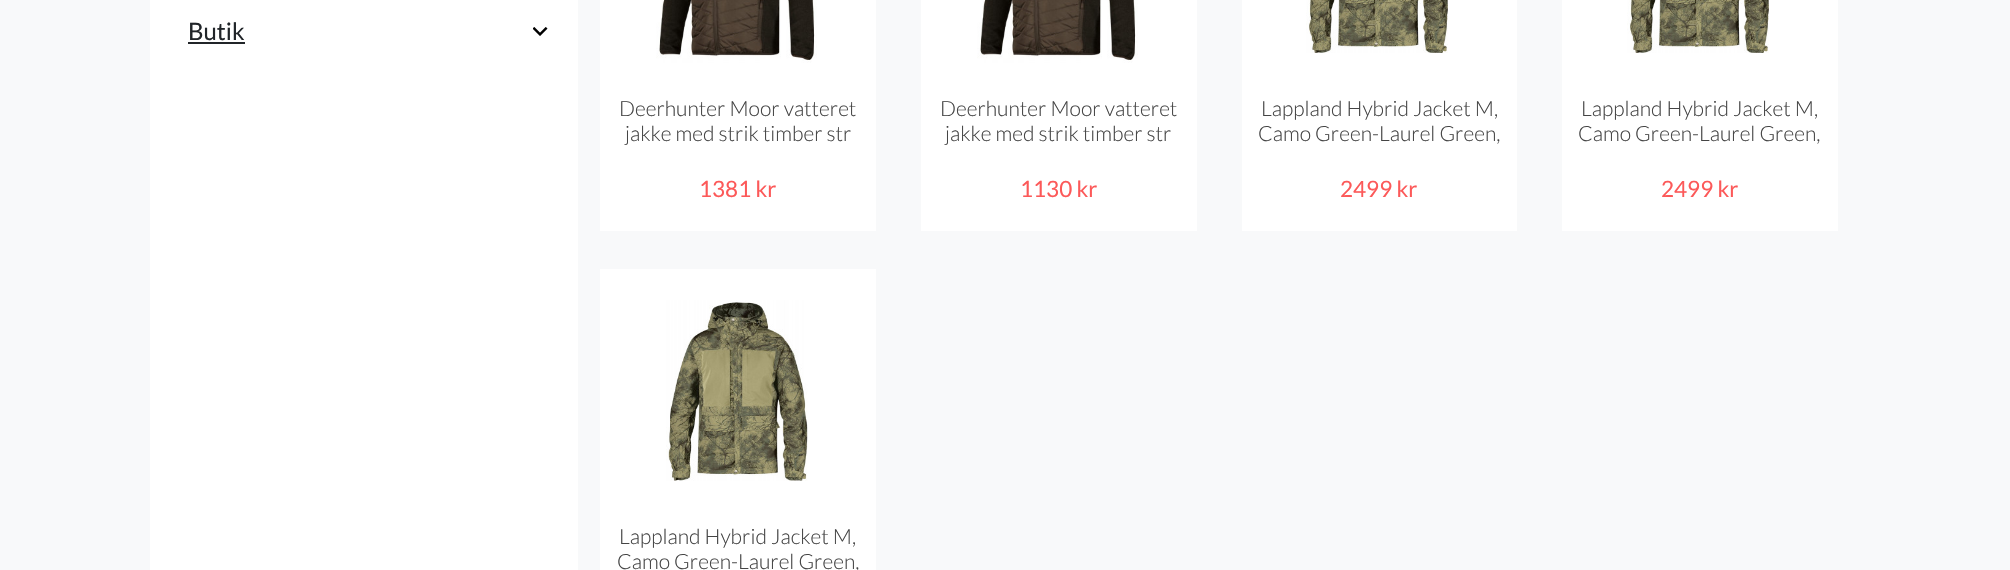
#include "include/core/SkBlurTypes.h"
#include "include/core/SkCanvas.h"
#include "include/core/SkData.h"
#include "include/core/SkFont.h"
#include "include/core/SkFontMgr.h"
#include "include/core/SkImage.h"
#include "include/core/SkMaskFilter.h"
#include "include/core/SkPaint.h"
#include "include/core/SkPathBuilder.h"
#include "include/core/SkTextBlob.h"
#include "include/effects/SkDashPathEffect.h"
#include "include/effects/SkGradientShader.h"
#include "include/utils/SkParsePath.h"

extern sk_sp<SkFontMgr> fontMgr;

void draw(SkCanvas* canvas) {
    SkPaint p;
    p.setAntiAlias(true);
    auto font = [&](const char* family, int weight, float size, bool italic = false) {
        SkFontStyle style(weight, SkFontStyle::kNormal_Width,
            italic ? SkFontStyle::kItalic_Slant : SkFontStyle::kUpright_Slant);
        SkFont result(fontMgr->matchFamilyStyle(family, style), size);
        result.setSubpixel(true);
        return result;
    };
    auto drawPhoto = [&](const char* path, float l, float t, float r, float b) {
        auto image = SkImages::DeferredFromEncodedData(SkData::MakeFromFileName(path));
        canvas->drawImageRect(image, SkRect::MakeLTRB(l, t, r, b), SkSamplingOptions());
    };
    canvas->clear(0xFFF8F9FA);
    p.setColor(0xFFFFFFFF);
    canvas->drawRect(SkRect::MakeLTRB(150, 0, 578, 570), p);
    auto font1 = font("Lato", 400, 24);
    p.setColor(0xFF212529);
    canvas->drawString("Butik", 188, 40, font1, p);
    canvas->drawRect(SkRect::MakeLTRB(188, 42, 245, 44), p);
    drawPhoto("media/1.png", 533, 27, 548, 36);
    p.setColor(0xFFFFFFFF);
    canvas->drawRect(SkRect::MakeLTRB(600, 0, 876, 231), p);
    drawPhoto("media/2.png", 656, 0, 817, 63);
    auto font2 = font("Lato", 300, 21);
    p.setColor(0xFF444444);
    canvas->drawString("Deerhunter Moor vatteret", 619, 116, font2, p);
    canvas->drawString("jakke med strik timber str", 625, 141, font2, p);
    auto font3 = font("Lato", 400, 22.5f);
    p.setColor(0xFFFC5959);
    canvas->drawString("1381 kr", 699, 197, font3, p);
    p.setColor(0xFFFFFFFF);
    canvas->drawRect(SkRect::MakeLTRB(921, 0, 1197, 231), p);
    drawPhoto("media/3.png", 977, 0, 1138, 63);
    p.setColor(0xFF444444);
    canvas->drawString("Deerhunter Moor vatteret", 940, 116, font2, p);
    canvas->drawString("jakke med strik timber str", 945, 141, font2, p);
    p.setColor(0xFFFC5959);
    canvas->drawString("1130 kr", 1020, 197, font3, p);
    p.setColor(0xFFFFFFFF);
    canvas->drawRect(SkRect::MakeLTRB(1242, 0, 1517, 231), p);
    drawPhoto("media/4.png", 1306, 0, 1448, 53);
    p.setColor(0xFF444444);
    canvas->drawString("Lappland Hybrid Jacket M,", 1261, 116, font2, p);
    canvas->drawString("Camo Green-Laurel Green,", 1258, 141, font2, p);
    p.setColor(0xFFFC5959);
    canvas->drawString("2499 kr", 1340, 197, font3, p);
    p.setColor(0xFFFFFFFF);
    canvas->drawRect(SkRect::MakeLTRB(1562, 0, 1838, 231), p);
    drawPhoto("media/5.png", 1627, 0, 1769, 53);
    p.setColor(0xFF444444);
    canvas->drawString("Lappland Hybrid Jacket M,", 1581, 116, font2, p);
    canvas->drawString("Camo Green-Laurel Green,", 1578, 141, font2, p);
    p.setColor(0xFFFC5959);
    canvas->drawString("2499 kr", 1661, 197, font3, p);
    p.setColor(0xFFFFFFFF);
    canvas->drawRect(SkRect::MakeLTRB(600, 269, 876, 570), p);
    drawPhoto("media/6.png", 666, 300, 808, 481);
    p.setColor(0xFF444444);
    canvas->drawString("Lappland Hybrid Jacket M,", 619, 544, font2, p);
    canvas->drawString("Camo Green-Laurel Green,", 617, 569, font2, p);
}
